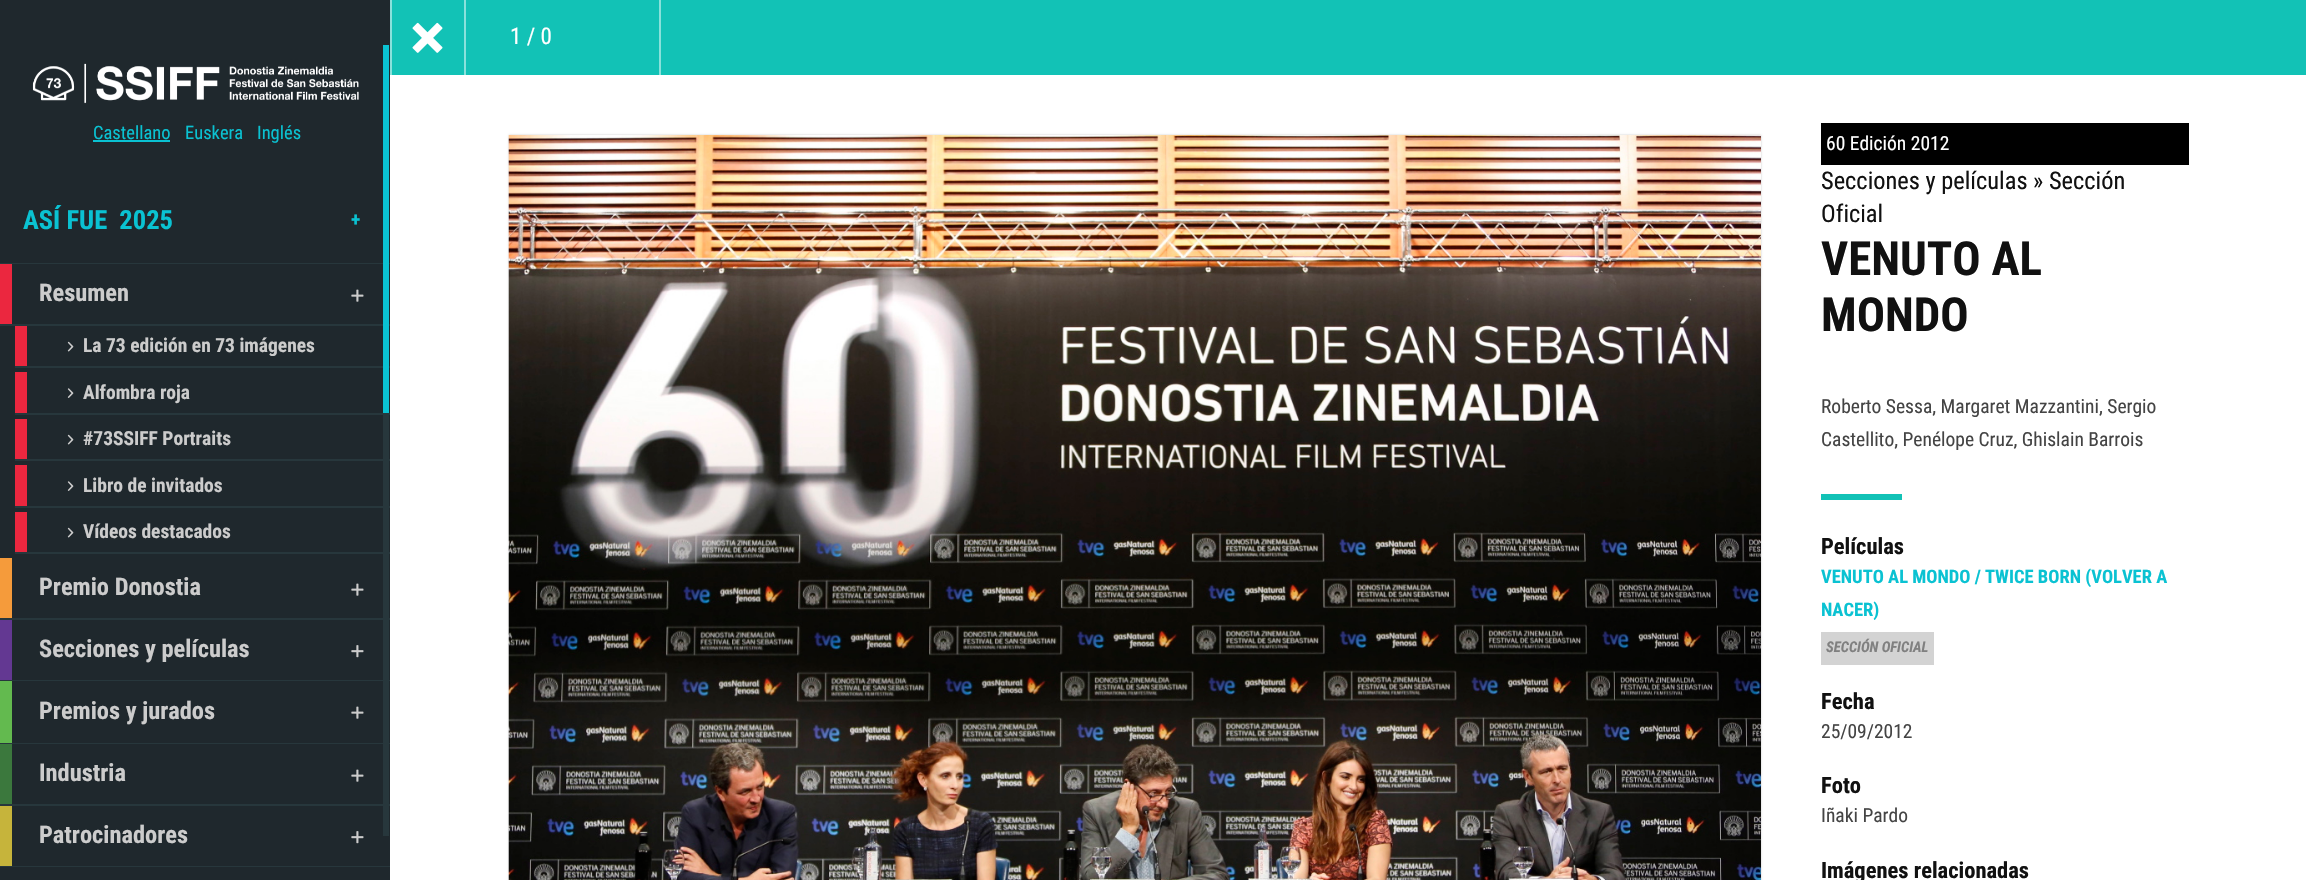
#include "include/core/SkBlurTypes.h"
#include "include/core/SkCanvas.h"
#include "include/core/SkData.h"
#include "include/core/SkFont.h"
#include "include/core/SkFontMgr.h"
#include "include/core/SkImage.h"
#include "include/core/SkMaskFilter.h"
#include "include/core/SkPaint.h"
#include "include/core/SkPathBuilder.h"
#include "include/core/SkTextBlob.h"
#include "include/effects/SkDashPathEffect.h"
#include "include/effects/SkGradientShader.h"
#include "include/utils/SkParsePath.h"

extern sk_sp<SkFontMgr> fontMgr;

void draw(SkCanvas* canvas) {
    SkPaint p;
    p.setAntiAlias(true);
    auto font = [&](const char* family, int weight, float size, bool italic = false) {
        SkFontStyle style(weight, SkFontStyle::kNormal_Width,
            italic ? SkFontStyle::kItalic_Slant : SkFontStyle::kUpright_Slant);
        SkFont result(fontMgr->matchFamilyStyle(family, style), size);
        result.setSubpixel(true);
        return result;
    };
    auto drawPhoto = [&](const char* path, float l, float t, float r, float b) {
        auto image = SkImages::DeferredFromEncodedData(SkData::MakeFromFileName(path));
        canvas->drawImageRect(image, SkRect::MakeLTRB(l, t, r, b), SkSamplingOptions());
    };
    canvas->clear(0xFFFFFFFF);
    {
        const struct { float l, t, r, b; SkColor color; } items[] = {
            {392, 0, 2306, 75, 0xFF12C2B6},
            {464, 0, 466, 75, 0xFF89E1DB},
            {390, 0, 392, 75, 0xFF89E1DB},
        };
        for (auto [l, t, r, b, color] : items) {
            p.setColor(color);
            canvas->drawRect(SkRect::MakeLTRB(l, t, r, b), p);
        }
    }
    drawPhoto("media/1.png", 412, 22, 443, 53);
    auto font1 = font("Roboto Condensed", 400, 23);
    p.setColor(0xFFFFFFFF);
    canvas->drawString("1 / 0", 510, 44, font1, p);
    p.setColor(0xFF89E1DB);
    canvas->drawRect(SkRect::MakeLTRB(659, 0, 661, 75), p);
    p.setColor(0xFF1F282D);
    canvas->drawRect(SkRect::MakeLTRB(0, 0, 390, 880), p);
    drawPhoto("media/2.png", 32, 63, 359, 104);
    auto font2 = font("Roboto Condensed", 400, 18.5f);
    p.setColor(0xFF0AC2D2);
    canvas->drawString("Castellano", 93, 139, font2, p);
    canvas->drawRect(SkRect::MakeLTRB(93, 140, 170, 142), p);
    canvas->drawString("Euskera", 185, 139, font2, p);
    canvas->drawString("Inglés", 257, 139, font2, p);
    auto font3 = font("Roboto Condensed", 700, 26.5f);
    canvas->drawString("ASÍ FUE  2025", 23, 229, font3, p);
    auto font4 = font("Roboto Condensed", 700, 19.5f);
    canvas->drawString("+", 351, 226, font4, p);
    {
        const struct { float l, t, r, b; SkColor color; } items[] = {
            {0, 263, 390, 264, 0xFF27373C},
            {0, 324, 390, 326, 0xFF27373C},
            {0, 264, 12, 324, 0xFFEB273F},
        };
        for (auto [l, t, r, b, color] : items) {
            p.setColor(color);
            canvas->drawRect(SkRect::MakeLTRB(l, t, r, b), p);
        }
    }
    auto font5 = font("Roboto Condensed", 700, 24.4f);
    p.setColor(0xFFCCCCCC);
    canvas->drawString("Resumen", 39, 301, font5, p);
    drawPhoto("media/3.png", 351, 289, 364, 302);
    p.setColor(0xFF27373C);
    canvas->drawRect(SkRect::MakeLTRB(15, 366, 390, 368), p);
    p.setColor(0xFFEB273F);
    canvas->drawRect(SkRect::MakeLTRB(15, 326, 27, 366), p);
    drawPhoto("media/4.png", 67, 341, 74, 352);
    p.setColor(0xFFCCCCCC);
    canvas->drawString("La 73 edición en 73 imágenes", 83, 352, font4, p);
    p.setColor(0xFF27373C);
    canvas->drawRect(SkRect::MakeLTRB(15, 413, 390, 415), p);
    p.setColor(0xFFEB273F);
    canvas->drawRect(SkRect::MakeLTRB(15, 372, 27, 413), p);
    drawPhoto("media/5.png", 67, 388, 74, 398);
    p.setColor(0xFFCCCCCC);
    canvas->drawString("Alfombra roja", 83, 399, font4, p);
    p.setColor(0xFF27373C);
    canvas->drawRect(SkRect::MakeLTRB(15, 459, 390, 461), p);
    p.setColor(0xFFEB273F);
    canvas->drawRect(SkRect::MakeLTRB(15, 419, 27, 459), p);
    drawPhoto("media/4.png", 67, 434, 74, 445);
    p.setColor(0xFFCCCCCC);
    canvas->drawString("#73SSIFF Portraits", 83, 445, font4, p);
    p.setColor(0xFF27373C);
    canvas->drawRect(SkRect::MakeLTRB(15, 506, 390, 508), p);
    p.setColor(0xFFEB273F);
    canvas->drawRect(SkRect::MakeLTRB(15, 465, 27, 506), p);
    drawPhoto("media/5.png", 67, 481, 74, 491);
    p.setColor(0xFFCCCCCC);
    canvas->drawString("Libro de invitados", 83, 492, font4, p);
    p.setColor(0xFF27373C);
    canvas->drawRect(SkRect::MakeLTRB(15, 552, 390, 554), p);
    p.setColor(0xFFEB273F);
    canvas->drawRect(SkRect::MakeLTRB(15, 512, 27, 552), p);
    drawPhoto("media/4.png", 67, 527, 74, 538);
    p.setColor(0xFFCCCCCC);
    canvas->drawString("Vídeos destacados", 83, 538, font4, p);
    p.setColor(0xFF27373C);
    canvas->drawRect(SkRect::MakeLTRB(0, 618, 390, 620), p);
    p.setColor(0xFFF59B3B);
    canvas->drawRect(SkRect::MakeLTRB(0, 558, 12, 618), p);
    p.setColor(0xFFCCCCCC);
    canvas->drawString("Premio Donostia", 39, 595, font5, p);
    drawPhoto("media/3.png", 351, 583, 364, 596);
    p.setColor(0xFF27373C);
    canvas->drawRect(SkRect::MakeLTRB(0, 680, 390, 681), p);
    p.setColor(0xFF633892);
    canvas->drawRect(SkRect::MakeLTRB(0, 620, 12, 680), p);
    p.setColor(0xFFCCCCCC);
    canvas->drawString("Secciones y películas", 39, 657, font5, p);
    drawPhoto("media/6.png", 351, 645, 364, 658);
    p.setColor(0xFF27373C);
    canvas->drawRect(SkRect::MakeLTRB(0, 743, 390, 744), p);
    p.setColor(0xFF63BA4F);
    canvas->drawRect(SkRect::MakeLTRB(0, 681, 12, 743), p);
    p.setColor(0xFFCCCCCC);
    canvas->drawString("Premios y jurados", 39, 719, font5, p);
    drawPhoto("media/3.png", 351, 706, 364, 719);
    p.setColor(0xFF27373C);
    canvas->drawRect(SkRect::MakeLTRB(0, 804, 390, 806), p);
    p.setColor(0xFF3B783D);
    canvas->drawRect(SkRect::MakeLTRB(0, 744, 12, 804), p);
    p.setColor(0xFFCCCCCC);
    canvas->drawString("Industria", 39, 781, font5, p);
    drawPhoto("media/3.png", 351, 769, 364, 782);
    p.setColor(0xFF27373C);
    canvas->drawRect(SkRect::MakeLTRB(0, 866, 390, 867), p);
    p.setColor(0xFFC6B43B);
    canvas->drawRect(SkRect::MakeLTRB(0, 806, 12, 866), p);
    p.setColor(0xFFCCCCCC);
    canvas->drawString("Patrocinadores", 39, 843, font5, p);
    drawPhoto("media/6.png", 351, 831, 364, 844);
    p.setColor(0xFF0AC2D2);
    canvas->drawRect(SkRect::MakeLTRB(383, 45, 389, 413), p);
    p.setColor(0xFF27373C);
    canvas->drawRect(SkRect::MakeLTRB(383, 413, 389, 836), p);
    p.setColor(0x33000000);
    p.setMaskFilter(SkMaskFilter::MakeBlur(kNormal_SkBlurStyle, 1));
    canvas->drawRect(SkRect::MakeLTRB(509, 135, 1761, 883), p);
    p.setMaskFilter(nullptr);
    drawPhoto("media/7.png", 508, 135, 1761, 880);
    p.setColor(0xFF000000);
    canvas->drawRect(SkRect::MakeLTRB(1821, 123, 2189, 165), p);
    auto font6 = font("Roboto Condensed", 400, 19.5f);
    p.setColor(0xFFFFFFFF);
    canvas->drawString("60 Edición 2012", 1826, 150, font6, p);
    auto font7 = font("Roboto Condensed", 400, 24.4f);
    p.setColor(0xFF111111);
    canvas->drawString("Secciones y películas » Sección", 1821, 189, font7, p);
    canvas->drawString("Oficial", 1821, 222, font7, p);
    auto font8 = font("Roboto Condensed", 700, 47);
    canvas->drawString("VENUTO AL", 1821, 275, font8, p);
    canvas->drawString("MONDO", 1821, 331, font8, p);
    p.setColor(0xFF444444);
    canvas->drawString("Roberto Sessa, Margaret Mazzantini, Sergio", 1821, 413, font6, p);
    canvas->drawString("Castellito, Penélope Cruz, Ghislain Barrois", 1821, 446, font6, p);
    p.setColor(0xFF12C2B6);
    canvas->drawRect(SkRect::MakeLTRB(1821, 494, 1902, 500), p);
    auto font9 = font("Roboto Condensed", 700, 22.5f);
    p.setColor(0xFF111111);
    canvas->drawString("Películas", 1821, 554, font9, p);
    auto font10 = font("Roboto Condensed", 700, 18.5f);
    p.setColor(0xFF0AC2D2);
    canvas->drawString("VENUTO AL MONDO / TWICE BORN (VOLVER A", 1821, 583, font10, p);
    canvas->drawString("NACER)", 1821, 616, font10, p);
    p.setColor(0xFFD3D3D3);
    canvas->drawRect(SkRect::MakeLTRB(1821, 632, 1934, 665), p);
    auto font11 = font("Roboto Condensed", 700, 14.75f, true);
    p.setColor(0xFF808080);
    canvas->drawString("SECCIÓN OFICIAL", 1826, 652, font11, p);
    p.setColor(0xFF111111);
    canvas->drawString("Fecha", 1821, 709, font9, p);
    p.setColor(0xFF444444);
    canvas->drawString("25/09/2012", 1821, 738, font6, p);
    p.setColor(0xFF111111);
    canvas->drawString("Foto", 1821, 793, font9, p);
    p.setColor(0xFF444444);
    canvas->drawString("Iñaki Pardo", 1821, 822, font6, p);
    p.setColor(0xFF111111);
    canvas->drawString("Imágenes relacionadas", 1821, 878, font9, p);
}
